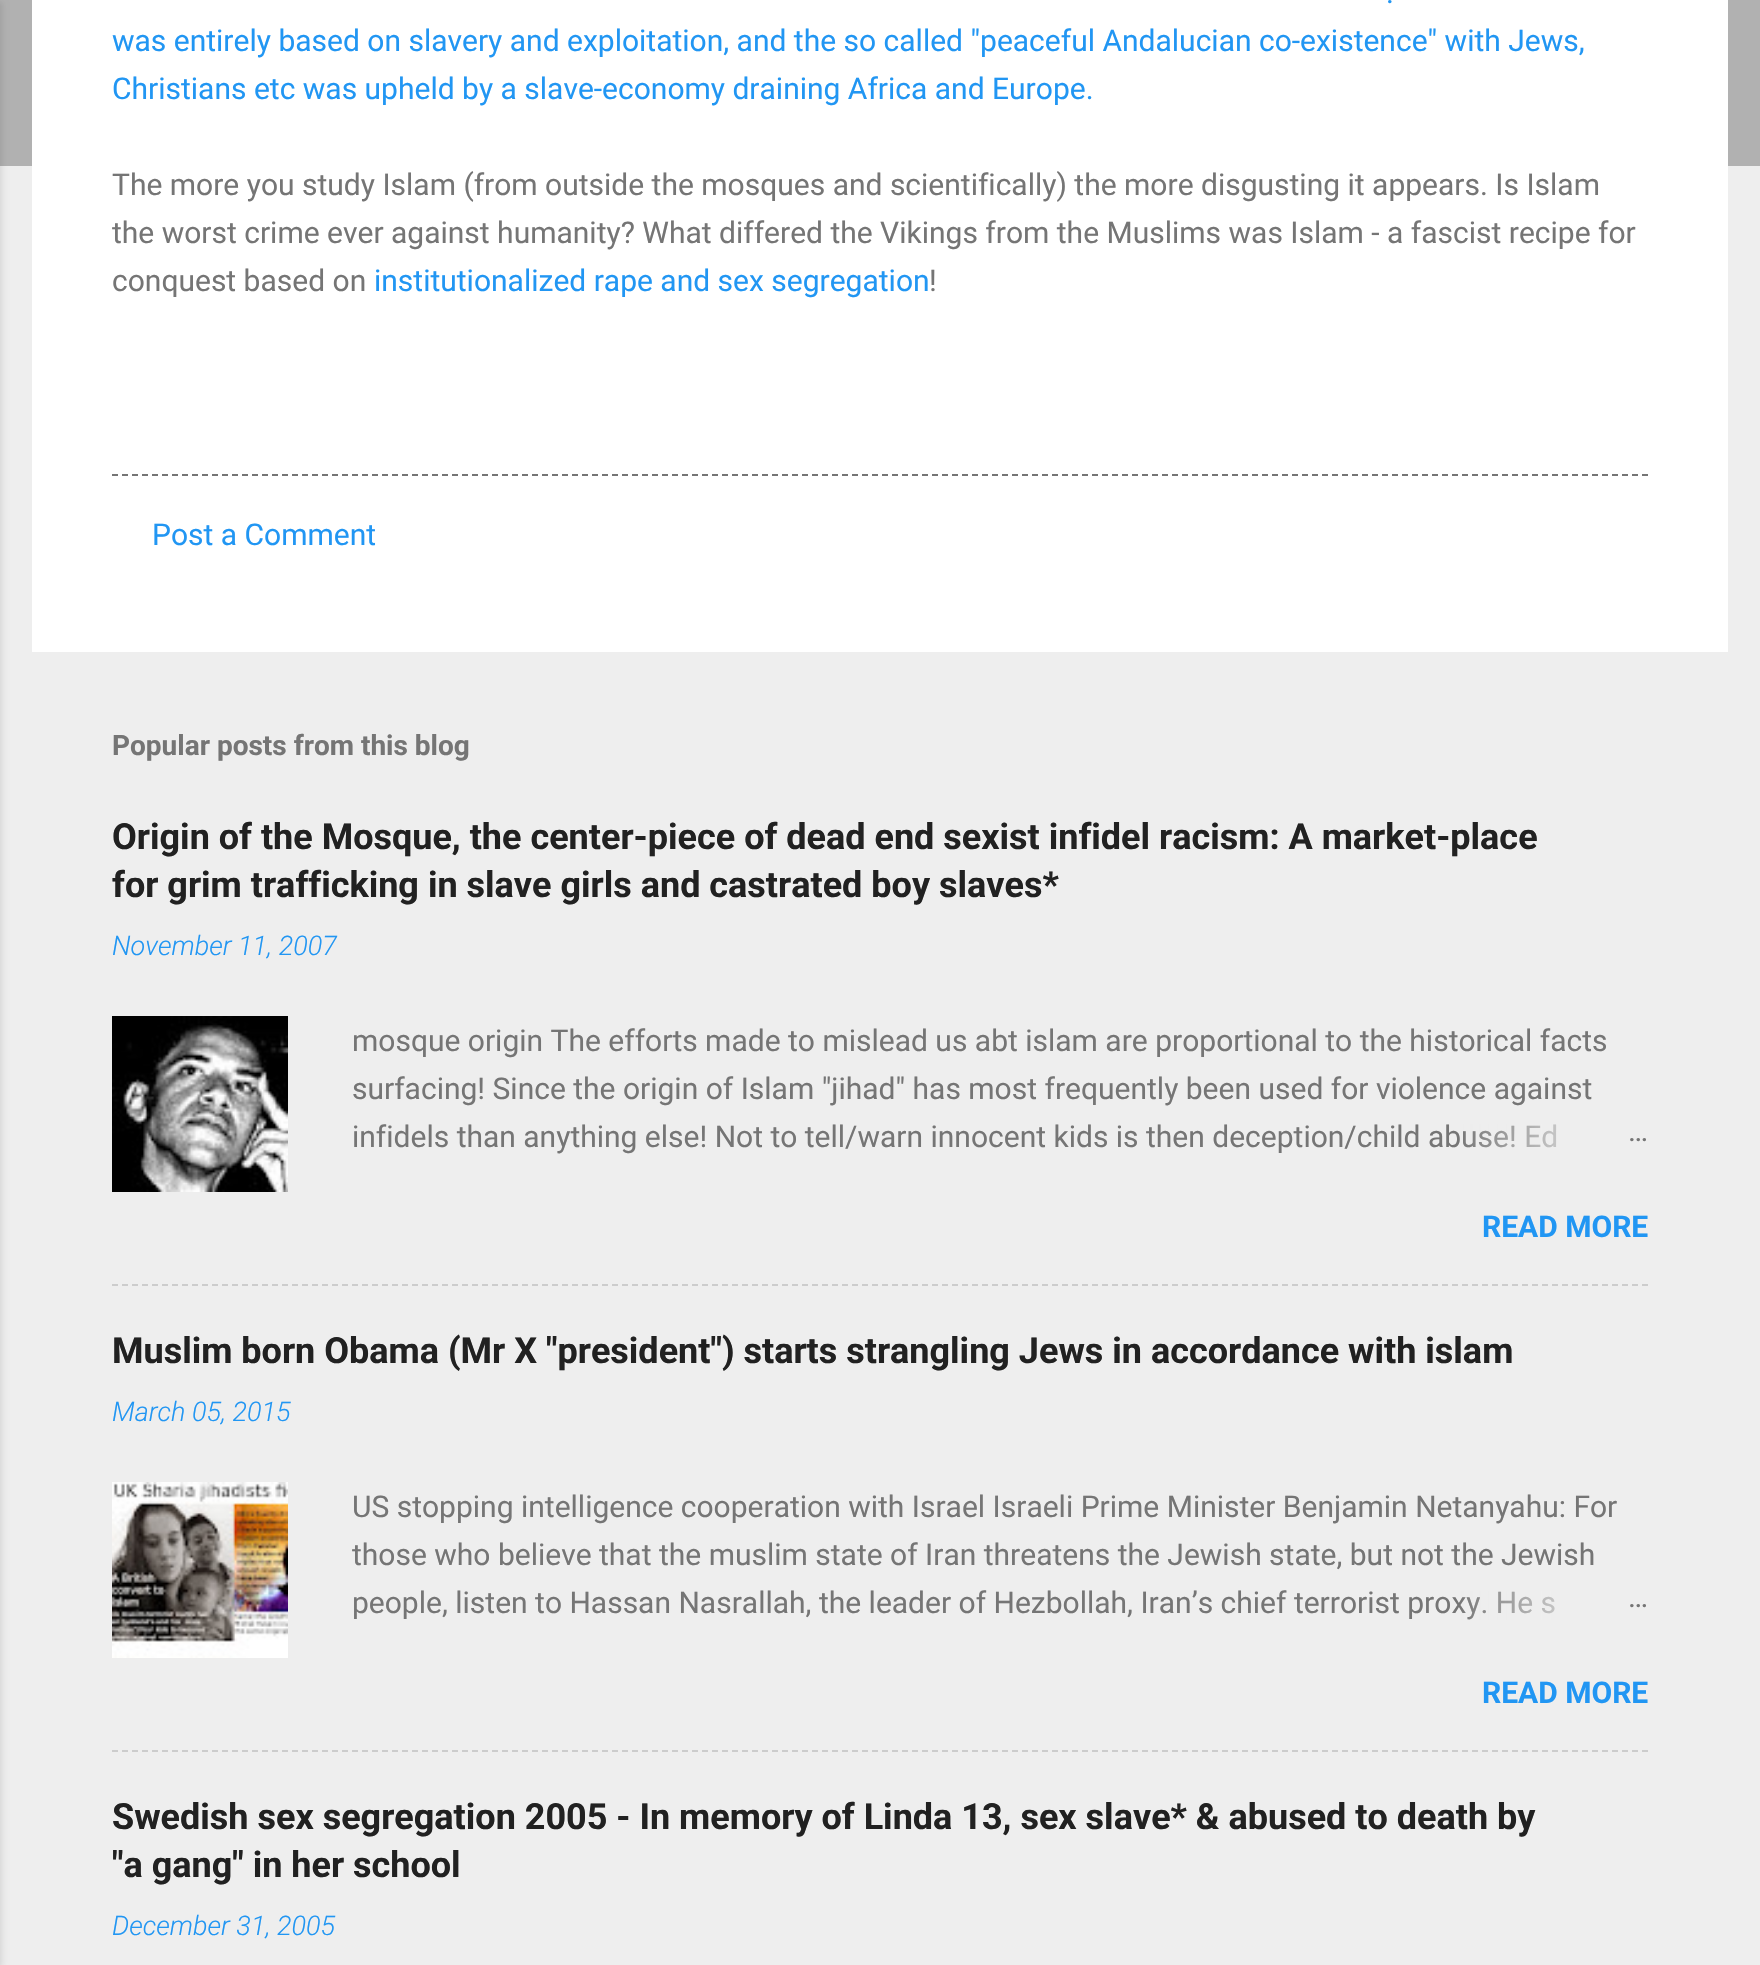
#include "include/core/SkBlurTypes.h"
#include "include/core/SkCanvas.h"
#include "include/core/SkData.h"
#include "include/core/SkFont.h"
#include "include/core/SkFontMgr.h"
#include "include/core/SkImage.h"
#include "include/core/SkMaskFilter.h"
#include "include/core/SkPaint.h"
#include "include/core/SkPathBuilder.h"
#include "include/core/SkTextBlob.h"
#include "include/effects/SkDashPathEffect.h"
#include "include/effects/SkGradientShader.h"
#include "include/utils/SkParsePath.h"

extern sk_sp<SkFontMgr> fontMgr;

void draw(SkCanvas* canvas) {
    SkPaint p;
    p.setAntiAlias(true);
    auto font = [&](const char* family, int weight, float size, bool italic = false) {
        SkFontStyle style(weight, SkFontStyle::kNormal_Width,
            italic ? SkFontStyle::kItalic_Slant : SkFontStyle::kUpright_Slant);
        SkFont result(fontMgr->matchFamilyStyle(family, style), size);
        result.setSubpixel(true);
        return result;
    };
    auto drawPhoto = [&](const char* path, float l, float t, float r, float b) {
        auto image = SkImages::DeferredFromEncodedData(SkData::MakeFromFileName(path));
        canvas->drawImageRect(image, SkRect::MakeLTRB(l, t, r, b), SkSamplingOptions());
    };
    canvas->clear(0xFFEEEEEE);
    p.setColor(0xFFB1B1B1);
    canvas->drawRect(SkRect::MakeLTRB(0, 0, 1760, 166), p);
    p.setColor(0x1A000000);
    p.setMaskFilter(SkMaskFilter::MakeBlur(kNormal_SkBlurStyle, 3));
    canvas->drawRect(SkRect::MakeLTRB(-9, 2, 2, 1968), p);
    p.setMaskFilter(nullptr);
    p.setColor(0xFFFFFFFF);
    canvas->drawRect(SkRect::MakeLTRB(32, 0, 1728, 652), p);
    auto font1 = font("Roboto", 400, 30);
    p.setColor(0xFF2196F3);
    {
        const struct { const char* s; float x, y; } items[] = {
            {".", 1386, 3},
            {"was entirely based on slavery and exploitation, and the so called \"peaceful Andalucian co-existence\" with Jews,", 112, 51},
            {"Christians etc was upheld by a slave-economy draining Africa and Europe.", 112, 99},
        };
        for (auto [s, x, y] : items) {
            canvas->drawString(s, x, y, font1, p);
        }
    }
    p.setColor(0xFF757575);
    {
        const struct { const char* s; float x, y; } items[] = {
            {"The more you study Islam (from outside the mosques and scientifically) the more disgusting it appears. Is Islam", 112, 195},
            {"the worst crime ever against humanity? What differed the Vikings from the Muslims was Islam - a fascist recipe for", 112, 243},
            {"conquest based on", 112, 291},
        };
        for (auto [s, x, y] : items) {
            canvas->drawString(s, x, y, font1, p);
        }
    }
    p.setColor(0xFF2196F3);
    canvas->drawString("institutionalized rape and sex segregation", 374, 291, font1, p);
    p.setColor(0xFF757575);
    canvas->drawString("!", 929, 291, font1, p);
    p.setStyle(SkPaint::kStroke_Style);
    p.setStrokeWidth(2);
    p.setPathEffect(SkDashPathEffect::Make({{6, 4}}, 0));
    canvas->drawPath(SkPathBuilder().moveTo(112, 475).lineTo(1648, 475).detach(), p);
    p.setPathEffect(nullptr);
    p.setStyle(SkPaint::kFill_Style);
    p.setColor(0xFF2196F3);
    canvas->drawString("Post a Comment", 152, 545, font1, p);
    auto font2 = font("Roboto", 700, 28);
    p.setColor(0xFF757575);
    canvas->drawString("Popular posts from this blog", 112, 755, font2, p);
    auto font3 = font("Roboto", 700, 36);
    p.setColor(0xFF212121);
    canvas->drawString("Origin of the Mosque, the center-piece of dead end sexist infidel racism: A market-place", 112, 849, font3, p);
    canvas->drawString("for grim trafficking in slave girls and castrated boy slaves*", 112, 897, font3, p);
    auto font4 = font("Roboto", 300, 27, true);
    p.setColor(0xFF2196F3);
    canvas->drawString("November 11, 2007", 112, 955, font4, p);
    drawPhoto("media/1.png", 112, 1016, 288, 1192);
    p.setColor(0xFF757575);
    {
        const struct { const char* s; float x, y; } items[] = {
            {"mosque origin The efforts made to mislead us abt islam are proportional to the historical facts", 352, 1051},
            {"surfacing! Since the origin of Islam \"jihad\" has most frequently been used for violence against", 352, 1099},
            {"infidels than anything else! Not to tell/warn innocent kids is then deception/child abuse! Ed", 352, 1147},
        };
        for (auto [s, x, y] : items) {
            canvas->drawString(s, x, y, font1, p);
        }
    }
    {
        const SkColor colors[] = {0xFFEEEEEE, 0xFFEEEEEE, 0x00EEEEEE};
        const float stops[] = {0, 0.2f, 1};
        const SkPoint ends[] = {{1648, 1136}, {1456, 1136}};
        p.setShader(SkGradientShader::MakeLinear(ends, colors, stops, 3, SkTileMode::kClamp));
        p.setAlpha(255);
    }
    canvas->drawRect(SkRect::MakeLTRB(1463, 1124, 1556, 1148), p);
    p.setShader(nullptr);
    p.setColor(0xFF757575);
    canvas->drawString("…", 1628, 1141, font1, p);
    auto font5 = font("Roboto", 700, 30);
    p.setColor(0xFF2196F3);
    canvas->drawString("READ MORE", 1482, 1237, font5, p);
    p.setStyle(SkPaint::kStroke_Style);
    p.setColor(0xFFCCCCCC);
    p.setPathEffect(SkDashPathEffect::Make({{6, 4}}, 0));
    canvas->drawPath(SkPathBuilder().moveTo(112, 1285).lineTo(1648, 1285).detach(), p);
    p.setPathEffect(nullptr);
    p.setStyle(SkPaint::kFill_Style);
    p.setColor(0xFF212121);
    canvas->drawString("Muslim born Obama (Mr X \"president\") starts strangling Jews in accordance with islam", 112, 1363, font3, p);
    p.setColor(0xFF2196F3);
    canvas->drawString("March 05, 2015", 112, 1421, font4, p);
    drawPhoto("media/2.png", 112, 1482, 288, 1658);
    p.setColor(0xFF757575);
    {
        const struct { const char* s; float x, y; } items[] = {
            {"US stopping intelligence cooperation with Israel Israeli Prime Minister Benjamin Netanyahu: For", 352, 1517},
            {"those who believe that the muslim state of Iran threatens the Jewish state, but not the Jewish", 352, 1565},
            {"people, listen to Hassan Nasrallah, the leader of Hezbollah, Iran’s chief terrorist proxy. He s", 352, 1613},
        };
        for (auto [s, x, y] : items) {
            canvas->drawString(s, x, y, font1, p);
        }
    }
    {
        const SkColor colors[] = {0xFFEEEEEE, 0xFFEEEEEE, 0x00EEEEEE};
        const float stops[] = {0, 0.2f, 1};
        const SkPoint ends[] = {{1648, 1602}, {1456, 1602}};
        p.setShader(SkGradientShader::MakeLinear(ends, colors, stops, 3, SkTileMode::kClamp));
        p.setAlpha(255);
    }
    canvas->drawRect(SkRect::MakeLTRB(1460, 1591, 1555, 1620), p);
    p.setShader(nullptr);
    p.setColor(0xFF757575);
    canvas->drawString("…", 1628, 1607, font1, p);
    p.setColor(0xFF2196F3);
    canvas->drawString("READ MORE", 1482, 1703, font5, p);
    p.setStyle(SkPaint::kStroke_Style);
    p.setColor(0xFFCCCCCC);
    p.setPathEffect(SkDashPathEffect::Make({{6, 4}}, 0));
    canvas->drawPath(SkPathBuilder().moveTo(112, 1751).lineTo(1648, 1751).detach(), p);
    p.setPathEffect(nullptr);
    p.setStyle(SkPaint::kFill_Style);
    p.setColor(0xFF212121);
    canvas->drawString("Swedish sex segregation 2005 - In memory of Linda 13, sex slave* & abused to death by", 112, 1829, font3, p);
    canvas->drawString("\"a gang\" in her school", 112, 1877, font3, p);
    p.setColor(0xFF2196F3);
    canvas->drawString("December 31, 2005", 112, 1935, font4, p);
}
